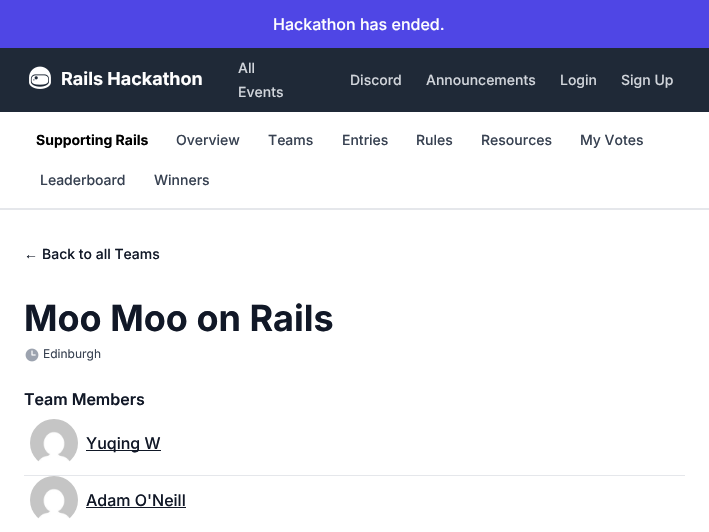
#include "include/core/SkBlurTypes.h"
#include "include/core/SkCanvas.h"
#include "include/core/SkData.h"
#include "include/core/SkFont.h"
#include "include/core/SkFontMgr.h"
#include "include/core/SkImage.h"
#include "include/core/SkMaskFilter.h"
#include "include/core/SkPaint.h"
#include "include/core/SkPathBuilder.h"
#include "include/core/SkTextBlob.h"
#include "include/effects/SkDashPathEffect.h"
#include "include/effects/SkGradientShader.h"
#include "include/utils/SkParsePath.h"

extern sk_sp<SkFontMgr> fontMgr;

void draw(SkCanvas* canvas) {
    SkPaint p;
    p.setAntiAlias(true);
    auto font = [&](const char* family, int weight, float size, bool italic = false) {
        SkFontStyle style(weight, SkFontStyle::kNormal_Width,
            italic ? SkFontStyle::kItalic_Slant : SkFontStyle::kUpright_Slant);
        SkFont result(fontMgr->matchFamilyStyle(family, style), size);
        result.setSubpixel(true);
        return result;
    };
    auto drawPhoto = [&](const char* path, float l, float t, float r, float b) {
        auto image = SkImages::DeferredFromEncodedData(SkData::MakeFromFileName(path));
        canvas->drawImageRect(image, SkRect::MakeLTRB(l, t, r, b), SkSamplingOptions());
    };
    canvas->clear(0xFFFFFFFF);
    p.setColor(0xFF4F46E5);
    canvas->drawRect(SkRect::MakeLTRB(0, 0, 709, 48), p);
    auto font1 = font("Inter", 500, 16);
    p.setColor(0xFFFFFFFF);
    canvas->drawString("Hackathon has ended.", 273, 30, font1, p);
    p.setColor(0xFF1F2937);
    canvas->drawRect(SkRect::MakeLTRB(0, 48, 709, 112), p);
    drawPhoto("media/1.png", 29, 66, 51, 89);
    auto font2 = font("Inter", 700, 18);
    p.setColor(0xFFFFFFFF);
    canvas->drawString("Rails Hackathon", 61, 85, font2, p);
    auto font3 = font("Inter", 500, 14);
    p.setColor(0xFFD1D5DB);
    {
        const struct { const char* s; float x, y; } items[] = {
            {"All", 238, 73},
            {"Events", 238, 97},
            {"Discord", 350, 85},
            {"Announcements", 426, 85},
            {"Login", 560, 85},
            {"Sign Up", 621, 85},
        };
        for (auto [s, x, y] : items) {
            canvas->drawString(s, x, y, font3, p);
        }
    }
    p.setColor(0xFFE5E7EB);
    canvas->drawRect(SkRect::MakeLTRB(0, 208, 709, 210), p);
    auto font4 = font("Inter", 700, 14);
    p.setColor(0xFF000000);
    canvas->drawString("Supporting Rails", 36, 145, font4, p);
    p.setColor(0xFF374151);
    {
        const struct { const char* s; float x, y; } items[] = {
            {"Overview", 176, 145},
            {"Teams", 268, 145},
            {"Entries", 342, 145},
            {"Rules", 416, 145},
            {"Resources", 481, 145},
            {"My Votes", 580, 145},
            {"Leaderboard", 40, 185},
            {"Winners", 154, 185},
        };
        for (auto [s, x, y] : items) {
            canvas->drawString(s, x, y, font3, p);
        }
    }
    auto font5 = font("Liberation Sans", 400, 14);
    p.setColor(0xFF111827);
    canvas->drawString("←", 24, 259, font5, p);
    canvas->drawString("Back to all Teams", 42, 259, font3, p);
    auto font6 = font("Inter", 700, 36);
    canvas->drawString("Moo Moo on Rails", 24, 331, font6, p);
    drawPhoto("media/2.png", 25, 348, 39, 362);
    auto font7 = font("Inter", 400, 12);
    p.setColor(0xFF374151);
    canvas->drawString("Edinburgh", 43, 358, font7, p);
    auto font8 = font("Inter", 600, 16);
    p.setColor(0xFF111827);
    canvas->drawString("Team Members", 24, 405, font8, p);
    drawPhoto("media/3.png", 30, 419, 78, 462);
    canvas->drawRect(SkRect::MakeLTRB(86, 450, 161, 451), p);
    canvas->drawString("Yuqing W", 86, 449, font1, p);
    p.setColor(0xFFE5E7EB);
    canvas->drawRect(SkRect::MakeLTRB(24, 475, 685, 476), p);
    drawPhoto("media/4.png", 30, 476, 78, 519);
    p.setColor(0xFF111827);
    canvas->drawString("Adam O'Neill", 86, 506, font1, p);
    canvas->drawRect(SkRect::MakeLTRB(86, 507, 186, 508), p);
}
